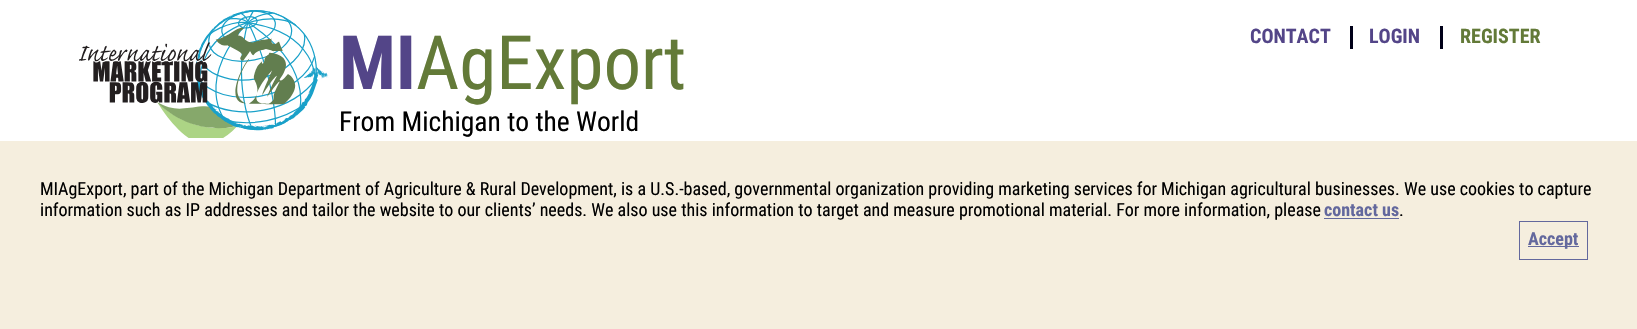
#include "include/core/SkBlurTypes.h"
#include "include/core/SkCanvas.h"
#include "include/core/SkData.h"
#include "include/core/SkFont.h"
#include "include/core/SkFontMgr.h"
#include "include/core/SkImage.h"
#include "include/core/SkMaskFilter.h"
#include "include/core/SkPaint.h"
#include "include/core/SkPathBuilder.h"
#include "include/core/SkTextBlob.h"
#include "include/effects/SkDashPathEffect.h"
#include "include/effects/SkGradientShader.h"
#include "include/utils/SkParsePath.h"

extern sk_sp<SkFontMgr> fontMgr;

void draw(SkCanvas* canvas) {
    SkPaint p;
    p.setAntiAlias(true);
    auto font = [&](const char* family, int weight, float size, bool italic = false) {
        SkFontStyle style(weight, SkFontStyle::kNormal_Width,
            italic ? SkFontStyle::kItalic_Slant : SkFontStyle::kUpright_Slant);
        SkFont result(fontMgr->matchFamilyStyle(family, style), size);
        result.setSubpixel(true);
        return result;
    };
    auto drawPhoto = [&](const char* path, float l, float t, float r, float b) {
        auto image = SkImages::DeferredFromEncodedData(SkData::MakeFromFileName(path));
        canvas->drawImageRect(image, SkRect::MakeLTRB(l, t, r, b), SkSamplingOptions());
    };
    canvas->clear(0xFFFFFFFF);
    drawPhoto("media/1.png", 79, 10, 329, 138);
    auto font1 = font("Roboto Condensed", 700, 75);
    p.setColor(0xFF534588);
    canvas->drawString("MI", 339, 89, font1, p);
    auto font2 = font("Roboto Condensed", 400, 75);
    p.setColor(0xFF637A38);
    canvas->drawString("AgExport", 416, 89, font2, p);
    auto font3 = font("Roboto Condensed", 400, 27.5f);
    p.setColor(0xFF000000);
    canvas->drawString("From Michigan to the World", 339, 131, font3, p);
    p.setColor(0xFF000018);
    canvas->drawRect(SkRect::MakeLTRB(1350, 26, 1353, 49), p);
    auto font4 = font("Roboto Condensed", 700, 20);
    p.setColor(0xFF534588);
    canvas->drawString("CONTACT", 1250, 43, font4, p);
    p.setColor(0xFF000018);
    canvas->drawRect(SkRect::MakeLTRB(1440, 26, 1443, 49), p);
    p.setColor(0xFF534588);
    canvas->drawString("LOGIN", 1369, 43, font4, p);
    p.setColor(0xFF637A38);
    canvas->drawString("REGISTER", 1460, 43, font4, p);
    p.setColor(0xFFF5EEDE);
    canvas->drawRect(SkRect::MakeLTRB(0, 141, 1637, 329), p);
    auto font5 = font("Roboto Condensed", 400, 18);
    p.setColor(0xFF000000);
    canvas->drawString("MIAgExport, part of the Michigan Department of Agriculture & Rural Development, is a U.S.-based, governmental organization providing marketing services for Michigan agricultural businesses. We use cookies to capture", 40, 195, font5, p);
    canvas->drawString("information such as IP addresses and tailor the website to our clients’ needs. We also use this information to target and measure promotional material. For more information, please", 40, 216, font5, p);
    auto font6 = font("Roboto Condensed", 700, 18);
    p.setColor(0xFF63689D);
    canvas->drawString("contact us", 1324, 216, font6, p);
    canvas->drawRect(SkRect::MakeLTRB(1324, 218, 1399, 219), p);
    p.setColor(0xFF000000);
    canvas->drawString(".", 1399, 216, font5, p);
    p.setStyle(SkPaint::kStroke_Style);
    p.setStrokeWidth(1);
    p.setColor(0xFF63689D);
    canvas->drawRect(SkRect::MakeLTRB(1519.5f, 221.5f, 1587.5f, 259.5f), p);
    p.setStyle(SkPaint::kFill_Style);
    canvas->drawRect(SkRect::MakeLTRB(1528, 246, 1579, 247), p);
    canvas->drawString("Accept", 1528, 245, font6, p);
}
